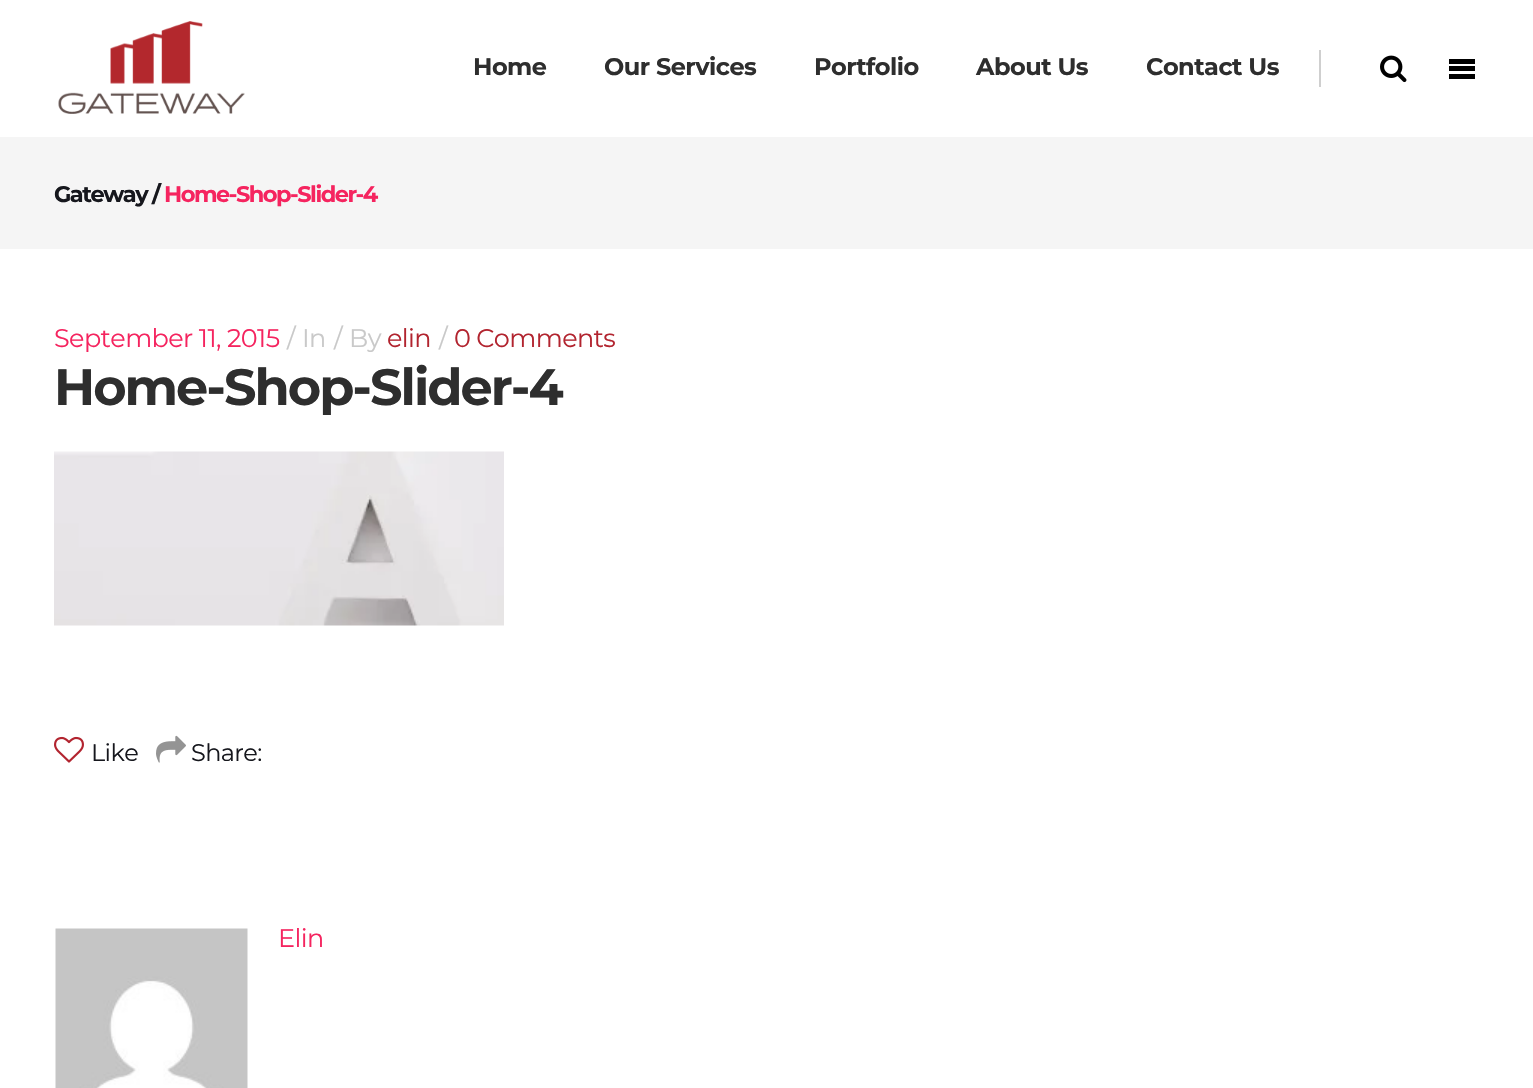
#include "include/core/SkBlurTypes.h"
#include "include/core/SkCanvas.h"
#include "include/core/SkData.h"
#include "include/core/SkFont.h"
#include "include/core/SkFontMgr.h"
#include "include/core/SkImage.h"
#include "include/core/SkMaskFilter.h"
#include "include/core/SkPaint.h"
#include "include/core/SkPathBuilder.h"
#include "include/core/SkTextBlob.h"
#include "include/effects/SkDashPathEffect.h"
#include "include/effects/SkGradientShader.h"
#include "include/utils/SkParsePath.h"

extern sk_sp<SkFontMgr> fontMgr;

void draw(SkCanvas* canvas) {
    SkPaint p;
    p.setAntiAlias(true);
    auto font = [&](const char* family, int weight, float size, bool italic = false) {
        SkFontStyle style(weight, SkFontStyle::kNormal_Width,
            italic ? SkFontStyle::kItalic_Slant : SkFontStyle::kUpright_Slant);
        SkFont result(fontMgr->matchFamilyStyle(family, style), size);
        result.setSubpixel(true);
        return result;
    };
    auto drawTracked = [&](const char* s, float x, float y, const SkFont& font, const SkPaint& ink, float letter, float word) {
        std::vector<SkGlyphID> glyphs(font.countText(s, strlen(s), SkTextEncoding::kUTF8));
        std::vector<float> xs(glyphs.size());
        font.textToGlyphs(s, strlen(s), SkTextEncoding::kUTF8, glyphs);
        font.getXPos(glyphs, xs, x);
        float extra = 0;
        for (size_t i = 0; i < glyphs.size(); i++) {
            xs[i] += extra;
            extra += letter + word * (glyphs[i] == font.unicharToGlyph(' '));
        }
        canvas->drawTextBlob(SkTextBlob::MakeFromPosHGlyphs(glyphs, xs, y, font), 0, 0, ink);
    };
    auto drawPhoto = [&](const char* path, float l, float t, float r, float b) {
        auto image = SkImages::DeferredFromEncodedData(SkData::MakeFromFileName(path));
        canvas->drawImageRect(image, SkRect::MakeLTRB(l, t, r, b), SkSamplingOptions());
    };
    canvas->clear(0xFFFFFFFF);
    drawPhoto("media/1.png", 58, 21, 245, 114);
    auto font1 = font("Montserrat", 700, 24);
    p.setColor(0xFF2E2E2E);
    {
        const struct { const char* s; float x, y; } items[] = {
            {"Home", 473, 75},
            {"Our Services", 604, 75},
            {"Portfolio", 814, 75},
            {"About Us", 976, 75},
            {"Contact Us", 1146, 75},
        };
        for (auto [s, x, y] : items) {
            drawTracked(s, x, y, font1, p, -0.5f, 0);
        }
    }
    p.setColor(0xFFCFCFCF);
    canvas->drawRect(SkRect::MakeLTRB(1319, 50, 1321, 87), p);
    drawPhoto("media/2.png", 1380, 55, 1407, 83);
    {
        const struct { float l, t, r, b; SkColor color; } items[] = {
            {1449, 66, 1475, 71, 0xFF000000},
            {1449, 59, 1475, 64, 0xFF000000},
            {1449, 74, 1475, 79, 0xFF000000},
            {0, 137, 1533, 249, 0xFFF5F5F5},
        };
        for (auto [l, t, r, b, color] : items) {
            p.setColor(color);
            canvas->drawRect(SkRect::MakeLTRB(l, t, r, b), p);
        }
    }
    auto font2 = font("Montserrat", 700, 22.5f);
    p.setColor(0xFF16171D);
    drawTracked("Gateway /", 54, 202, font2, p, -1.5f, 0);
    p.setColor(0xFFF5245F);
    drawTracked("Home-Shop-Slider-4", 164, 202, font2, p, -1.5f, 0);
    auto font3 = font("Montserrat", 400, 25.5f);
    drawTracked("September 11, 2015", 54, 347, font3, p, -0.6f, 0);
    p.setColor(0xFFC9C9C9);
    {
        const struct { const char* s; float x, y; } items[] = {
            {"/", 287, 347},
            {"In", 302, 347},
            {"/", 334, 347},
            {"By", 349, 347},
        };
        for (auto [s, x, y] : items) {
            drawTracked(s, x, y, font3, p, -0.6f, 0);
        }
    }
    p.setColor(0xFFB2242F);
    drawTracked("elin", 387, 347, font3, p, -0.6f, 0);
    p.setColor(0xFFC9C9C9);
    drawTracked("/", 439, 347, font3, p, -0.6f, 0);
    p.setColor(0xFFB2242F);
    drawTracked("0 Comments", 454, 347, font3, p, -0.6f, 0);
    auto font4 = font("Montserrat", 700, 51);
    p.setColor(0xFF2E2E2E);
    drawTracked("Home-Shop-Slider-4", 54, 405, font4, p, -2, 0);
    drawPhoto("media/3.png", 54, 451, 504, 626);
    drawPhoto("media/4.png", 54, 736, 84, 763);
    auto font5 = font("Montserrat", 400, 24);
    p.setColor(0xFF16171D);
    drawTracked("Like", 91, 761, font5, p, -0.6f, 0);
    drawPhoto("media/5.png", 156, 735, 186, 763);
    drawTracked("Share:", 191, 761, font5, p, -0.6f, 0);
    drawPhoto("media/6.png", 55, 928, 248, 1088);
    p.setColor(0xFFF5245F);
    drawTracked("Elin", 278, 947, font3, p, -0.6f, 0);
}
